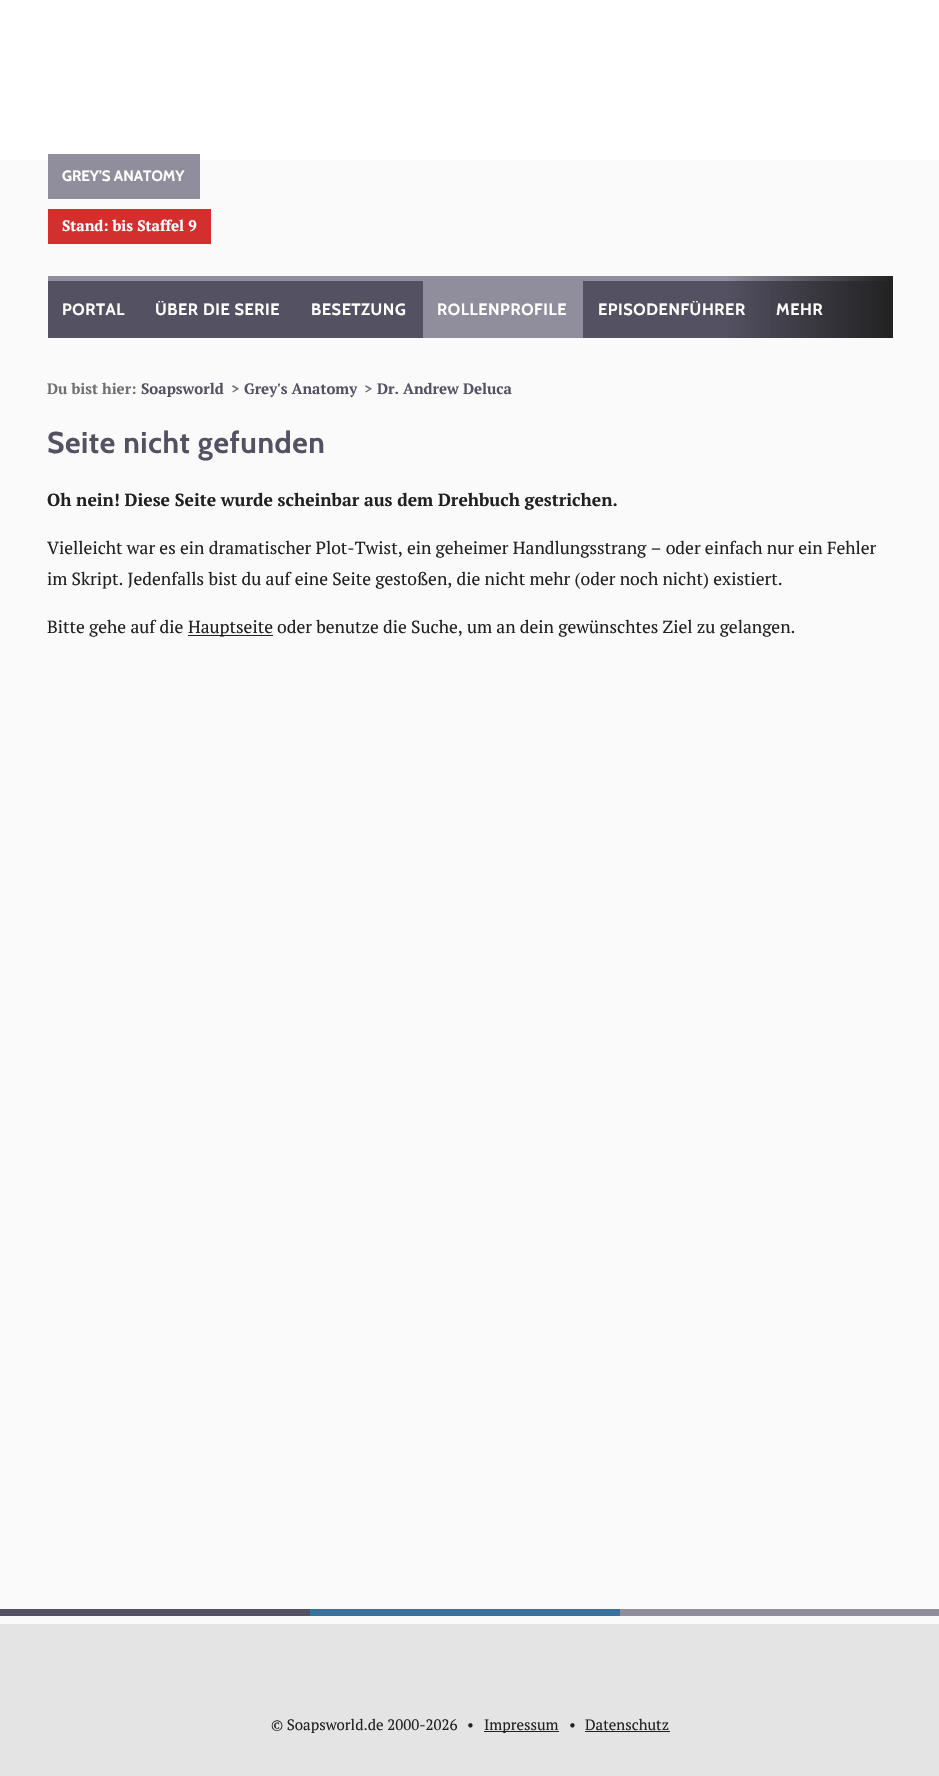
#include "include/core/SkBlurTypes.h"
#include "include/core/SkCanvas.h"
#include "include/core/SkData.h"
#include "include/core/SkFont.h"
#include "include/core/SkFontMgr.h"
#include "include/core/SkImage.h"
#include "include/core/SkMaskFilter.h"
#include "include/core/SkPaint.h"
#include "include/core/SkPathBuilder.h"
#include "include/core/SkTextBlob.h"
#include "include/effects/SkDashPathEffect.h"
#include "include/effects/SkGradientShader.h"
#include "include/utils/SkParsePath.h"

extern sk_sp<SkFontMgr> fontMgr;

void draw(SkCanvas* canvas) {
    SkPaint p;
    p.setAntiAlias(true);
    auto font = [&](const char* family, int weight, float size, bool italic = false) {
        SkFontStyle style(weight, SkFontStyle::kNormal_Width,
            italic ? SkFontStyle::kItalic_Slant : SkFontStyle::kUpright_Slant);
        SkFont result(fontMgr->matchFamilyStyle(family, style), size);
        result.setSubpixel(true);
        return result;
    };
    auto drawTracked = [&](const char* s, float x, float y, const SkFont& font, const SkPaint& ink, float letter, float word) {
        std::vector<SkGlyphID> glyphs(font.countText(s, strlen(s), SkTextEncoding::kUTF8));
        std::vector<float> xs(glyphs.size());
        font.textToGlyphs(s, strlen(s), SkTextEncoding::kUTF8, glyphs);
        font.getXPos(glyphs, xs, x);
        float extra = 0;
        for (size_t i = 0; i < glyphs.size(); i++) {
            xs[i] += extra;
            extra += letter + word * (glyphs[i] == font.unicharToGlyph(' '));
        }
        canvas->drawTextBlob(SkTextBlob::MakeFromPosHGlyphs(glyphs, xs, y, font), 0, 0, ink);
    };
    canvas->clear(0xFFFAFAFA);
    p.setColor(0xFFFFFFFF);
    canvas->drawRect(SkRect::MakeLTRB(0, 0, 939, 160), p);
    p.setColor(0xFF908D9D);
    canvas->drawRect(SkRect::MakeLTRB(48, 154, 200, 199), p);
    auto font1 = font("Cabin", 700, 15);
    p.setColor(0xFFFFFFFF);
    canvas->drawString("GREY'S ANATOMY", 62, 181, font1, p);
    p.setColor(0xFFD32F2F);
    canvas->drawRect(SkRect::MakeLTRB(48, 209, 211, 244), p);
    auto font2 = font("PT Serif", 700, 15);
    p.setColor(0xFFFFFFFF);
    canvas->drawString("Stand: bis Staffel 9", 62, 231, font2, p);
    p.setColor(0xFF545163);
    canvas->drawRect(SkRect::MakeLTRB(48, 281, 892, 338), p);
    p.setColor(0xFF908D9D);
    canvas->drawRect(SkRect::MakeLTRB(48, 276, 893, 281), p);
    {
        const SkColor colors[] = {0x00212121, 0xFF212121};
        const float stops[] = {0.8f, 1};
        const SkPoint ends[] = {{48, 307}, {893, 307}};
        p.setShader(SkGradientShader::MakeLinear(ends, colors, stops, 2, SkTileMode::kClamp));
        p.setAlpha(255);
    }
    canvas->drawRect(SkRect::MakeLTRB(728, 276, 893, 338), p);
    auto font3 = font("Cabin", 700, 16.25f);
    p.setShader(nullptr);
    p.setColor(0xFFFFFFFF);
    {
        const struct { const char* s; float x, y; } items[] = {
            {"PORTAL", 62, 315},
            {"ÜBER DIE SERIE", 155, 315},
            {"BESETZUNG", 311, 315},
        };
        for (auto [s, x, y] : items) {
            drawTracked(s, x, y, font3, p, 0.6f, 0);
        }
    }
    p.setColor(0xFF908D9D);
    canvas->drawRect(SkRect::MakeLTRB(423, 281, 583, 338), p);
    p.setColor(0xFFFFFFFF);
    {
        const struct { const char* s; float x, y; } items[] = {
            {"ROLLENPROFILE", 437, 315},
            {"EPISODENFÜHRER", 598, 315},
            {"MEHR", 776, 315},
        };
        for (auto [s, x, y] : items) {
            drawTracked(s, x, y, font3, p, 0.6f, 0);
        }
    }
    p.setColor(0xFF6F6F6F);
    canvas->drawString("Du bist hier:", 47, 394, font2, p);
    p.setColor(0xFF545163);
    canvas->drawString("Soapsworld", 141, 394, font2, p);
    p.setColor(0xFF6F6F6F);
    canvas->drawString(">", 231, 394, font2, p);
    p.setColor(0xFF545163);
    canvas->drawString("Grey's Anatomy", 244, 394, font2, p);
    p.setColor(0xFF6F6F6F);
    canvas->drawString(">", 364, 394, font2, p);
    p.setColor(0xFF545163);
    canvas->drawString("Dr. Andrew Deluca", 377, 394, font2, p);
    auto font4 = font("Cabin", 700, 30);
    drawTracked("Seite nicht gefunden", 47, 453, font4, p, 0.6f, 0);
    auto font5 = font("PT Serif", 700, 17.5f);
    p.setColor(0xFF212121);
    canvas->drawString("Oh nein! Diese Seite wurde scheinbar aus dem Drehbuch gestrichen.", 47, 506, font5, p);
    auto font6 = font("PT Serif", 400, 17.5f);
    {
        const struct { const char* s; float x, y; } items[] = {
            {"Vielleicht war es ein dramatischer Plot-Twist, ein geheimer Handlungsstrang – oder einfach nur ein Fehler", 47, 554},
            {"im Skript. Jedenfalls bist du auf eine Seite gestoßen, die nicht mehr (oder noch nicht) existiert.", 47, 585},
            {"Bitte gehe auf die", 47, 633},
        };
        for (auto [s, x, y] : items) {
            canvas->drawString(s, x, y, font6, p);
        }
    }
    canvas->drawRect(SkRect::MakeLTRB(188, 635, 273, 636), p);
    canvas->drawString("Hauptseite", 188, 633, font6, p);
    canvas->drawString("oder benutze die Suche, um an dein gewünschtes Ziel zu gelangen.", 277, 633, font6, p);
    {
        const struct { float l, t, r, b; SkColor color; } items[] = {
            {0, 1609, 310, 1616, 0xFF545163},
            {310, 1609, 620, 1616, 0xFF39739D},
            {620, 1609, 939, 1616, 0xFF908D9D},
            {0, 1624, 939, 1776, 0xFFE4E4E4},
        };
        for (auto [l, t, r, b, color] : items) {
            p.setColor(color);
            canvas->drawRect(SkRect::MakeLTRB(l, t, r, b), p);
        }
    }
    auto font7 = font("PT Serif", 400, 15);
    p.setColor(0xFF212121);
    canvas->drawString("© Soapsworld.de 2000-2026", 271, 1730, font7, p);
    canvas->drawString("•", 467, 1730, font7, p);
    canvas->drawRect(SkRect::MakeLTRB(484, 1731, 559, 1732), p);
    {
        const struct { const char* s; float x, y; } items[] = {
            {"Impressum", 484, 1730},
            {"•", 569, 1730},
            {"Datenschutz", 585, 1730},
        };
        for (auto [s, x, y] : items) {
            canvas->drawString(s, x, y, font7, p);
        }
    }
    canvas->drawRect(SkRect::MakeLTRB(585, 1731, 670, 1732), p);
}
